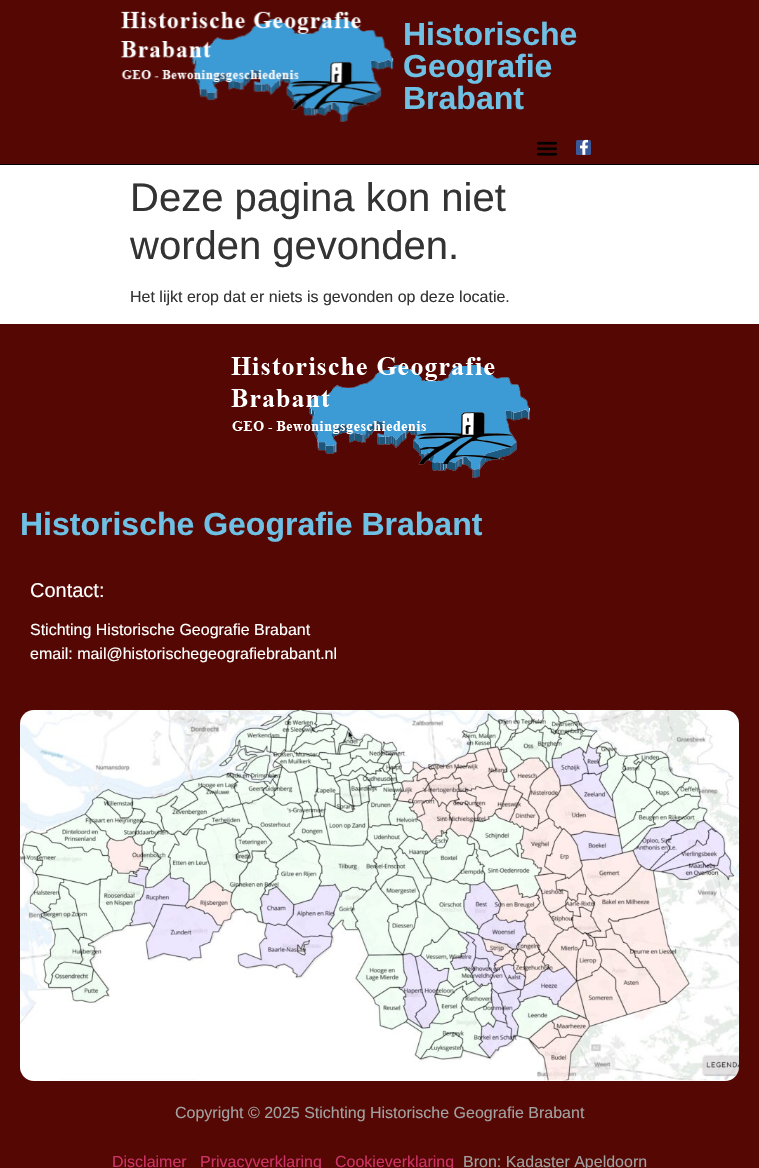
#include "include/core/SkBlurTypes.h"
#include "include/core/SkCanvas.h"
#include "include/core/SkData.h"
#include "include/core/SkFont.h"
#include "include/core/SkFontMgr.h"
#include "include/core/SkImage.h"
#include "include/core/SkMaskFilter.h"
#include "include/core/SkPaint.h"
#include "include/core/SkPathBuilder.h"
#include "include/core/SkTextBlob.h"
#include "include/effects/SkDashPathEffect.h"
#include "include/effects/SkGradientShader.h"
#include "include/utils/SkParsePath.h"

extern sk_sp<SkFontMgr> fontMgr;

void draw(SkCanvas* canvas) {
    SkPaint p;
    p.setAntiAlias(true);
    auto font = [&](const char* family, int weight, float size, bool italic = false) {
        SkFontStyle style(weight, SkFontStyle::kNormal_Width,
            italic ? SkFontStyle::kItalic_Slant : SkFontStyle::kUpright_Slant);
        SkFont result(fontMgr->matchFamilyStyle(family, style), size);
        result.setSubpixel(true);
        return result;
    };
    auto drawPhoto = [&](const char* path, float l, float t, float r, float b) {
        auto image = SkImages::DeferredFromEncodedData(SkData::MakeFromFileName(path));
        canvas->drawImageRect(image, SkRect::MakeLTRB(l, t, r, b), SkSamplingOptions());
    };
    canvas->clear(0xFFFFFFFF);
    p.setColor(0xFF550803);
    canvas->drawRect(SkRect::MakeLTRB(0, 0, 759, 164), p);
    p.setColor(0xFF000000);
    canvas->drawRect(SkRect::MakeLTRB(0, 164, 759, 165), p);
    drawPhoto("media/1.png", 120, 11, 394, 122);
    auto font1 = font("Liberation Sans", 700, 32);
    p.setColor(0xFF6EC1E4);
    {
        const struct { const char* s; float x, y; } items[] = {
            {"Historische", 403, 45},
            {"Geografie", 403, 77},
            {"Brabant", 403, 109},
        };
        for (auto [s, x, y] : items) {
            canvas->drawString(s, x, y, font1, p);
        }
    }
    drawPhoto("media/2.png", 537, 141, 557, 156);
    p.setColor(0xFF3B5998);
    canvas->drawRoundRect(SkRect::MakeLTRB(576, 140, 591, 155), 1.5f, 1.5f, p);
    drawPhoto("media/3.png", 580, 139, 588, 155);
    auto font2 = font("Liberation Sans", 400, 40);
    p.setColor(0xFF333333);
    canvas->drawString("Deze pagina kon niet", 130, 211, font2, p);
    canvas->drawString("worden gevonden.", 130, 259, font2, p);
    auto font3 = font("Liberation Sans", 400, 16);
    canvas->drawString("Het lijkt erop dat er niets is gevonden op deze locatie.", 130, 302, font3, p);
    p.setColor(0xFF550803);
    canvas->drawRect(SkRect::MakeLTRB(0, 324, 759, 1168), p);
    drawPhoto("media/4.png", 231, 357, 530, 478);
    p.setColor(0xFF6EC1E4);
    canvas->drawString("Historische Geografie Brabant", 20, 535, font1, p);
    auto font4 = font("Liberation Sans", 400, 20);
    p.setColor(0xFFFFFFFF);
    canvas->drawString("Contact:", 30, 597, font4, p);
    canvas->drawString("Stichting Historische Geografie Brabant", 30, 635, font3, p);
    canvas->drawString("email: mail@historischegeografiebrabant.nl", 30, 659, font3, p);
    drawPhoto("media/5.png", 20, 710, 739, 1081);
    p.setColor(0xFFA2A1A1);
    canvas->drawString("Copyright © 2025 Stichting Historische Geografie Brabant", 175, 1118, font3, p);
    p.setColor(0xFFCC3366);
    {
        const struct { const char* s; float x, y; } items[] = {
            {"Disclaimer", 112, 1167},
            {"Privacyverklaring", 200, 1167},
            {"Cookieverklaring", 335, 1167},
        };
        for (auto [s, x, y] : items) {
            canvas->drawString(s, x, y, font3, p);
        }
    }
    p.setColor(0xFFA2A1A1);
    canvas->drawString("Bron: Kadaster Apeldoorn", 463, 1167, font3, p);
}
